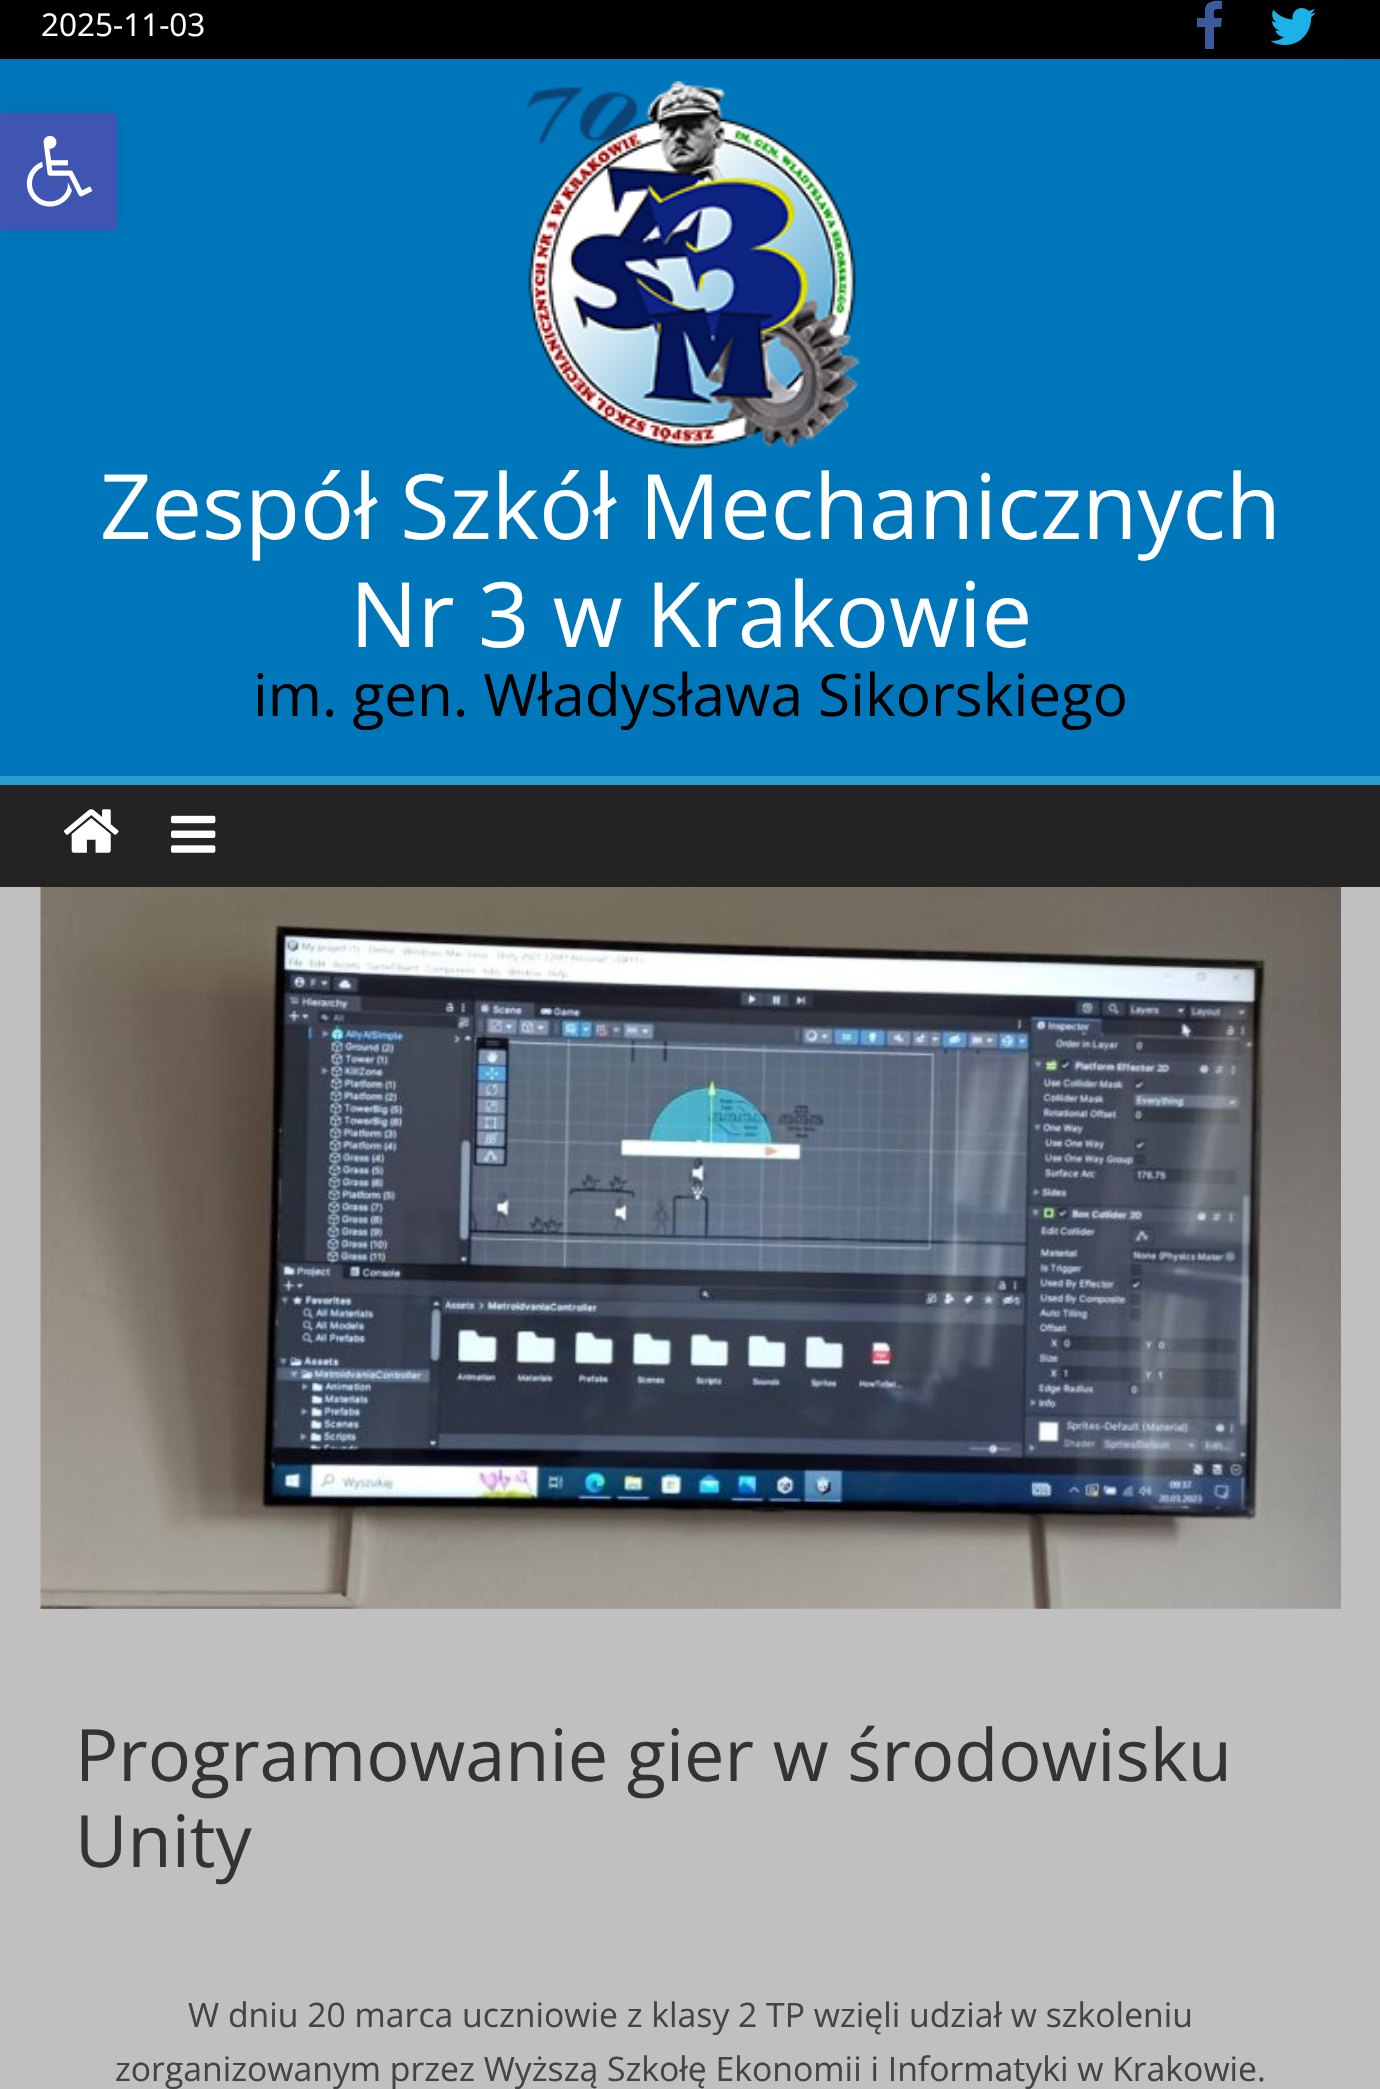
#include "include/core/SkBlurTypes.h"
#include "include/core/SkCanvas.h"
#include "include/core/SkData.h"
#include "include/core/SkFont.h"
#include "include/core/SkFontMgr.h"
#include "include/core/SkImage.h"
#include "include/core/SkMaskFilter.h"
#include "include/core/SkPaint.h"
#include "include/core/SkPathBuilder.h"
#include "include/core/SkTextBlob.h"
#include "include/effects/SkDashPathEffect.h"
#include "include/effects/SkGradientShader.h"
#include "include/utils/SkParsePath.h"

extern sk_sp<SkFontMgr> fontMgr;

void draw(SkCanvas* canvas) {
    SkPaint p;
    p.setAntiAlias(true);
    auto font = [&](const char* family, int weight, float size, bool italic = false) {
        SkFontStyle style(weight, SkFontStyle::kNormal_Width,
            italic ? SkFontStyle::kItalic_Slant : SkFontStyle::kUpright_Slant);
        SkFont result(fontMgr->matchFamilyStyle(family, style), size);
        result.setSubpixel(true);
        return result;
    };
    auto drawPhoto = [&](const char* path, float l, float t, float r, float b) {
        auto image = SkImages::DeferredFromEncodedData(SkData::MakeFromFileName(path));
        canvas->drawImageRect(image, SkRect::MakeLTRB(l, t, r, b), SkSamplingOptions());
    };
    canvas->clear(0xFF0077BB);
    p.setColor(0x1A000000);
    p.setMaskFilter(SkMaskFilter::MakeBlur(kNormal_SkBlurStyle, 2));
    canvas->drawRect(SkRect::MakeLTRB(0, 0, 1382, 59), p);
    p.setMaskFilter(nullptr);
    p.setColor(0xFF000000);
    canvas->drawRect(SkRect::MakeLTRB(0, 0, 1380, 59), p);
    auto font1 = font("Open Sans", 400, 31.5f);
    p.setColor(0xFFFFFFFF);
    canvas->drawString("2025-11-03", 41, 36, font1, p);
    p.setColor(0xFF3B5A9B);
    canvas->drawPath(SkPathBuilder().moveTo(1222, 1).lineTo(1222, 9).cubicTo(1213, 9, 1214, 9, 1214, 18).lineTo(1222, 18).lineTo(1221, 27).lineTo(1214, 27).lineTo(1214, 49).lineTo(1205, 49).lineTo(1205, 27).lineTo(1197, 27).lineTo(1197, 18).lineTo(1205, 18).lineTo(1205, 9).cubicTo(1206, 1, 1215, 0, 1222, 1).close().detach(), p);
    drawPhoto("media/1.png", 1270, 8, 1316, 45);
    p.setColor(0xFF0077BB);
    canvas->drawRect(SkRect::MakeLTRB(41, 59, 1341, 61), p);
    drawPhoto("media/2.png", 526, 81, 860, 449);
    auto font2 = font("Open Sans", 400, 90);
    p.setColor(0xFFFFFFFF);
    canvas->drawString("Zespół Szkół Mechanicznych", 100, 539, font2, p);
    canvas->drawString("Nr 3 w Krakowie", 350, 647, font2, p);
    auto font3 = font("Open Sans", 400, 58.5f);
    p.setColor(0xFF000000);
    canvas->drawString("im. gen. Władysława Sikorskiego", 253, 716, font3, p);
    p.setColor(0xFF232323);
    canvas->drawRect(SkRect::MakeLTRB(0, 785, 1380, 887), p);
    p.setColor(0xFF289DCC);
    canvas->drawRect(SkRect::MakeLTRB(0, 776, 1380, 785), p);
    drawPhoto("media/3.png", 63, 809, 119, 853);
    drawPhoto("media/4.png", 171, 815, 216, 853);
    p.setColor(0xFFC0C0C0);
    canvas->drawRect(SkRect::MakeLTRB(0, 887, 1380, 2089), p);
    drawPhoto("media/5.png", 40, 887, 1341, 1609);
    auto font4 = font("Open Sans", 400, 72);
    p.setColor(0xFF333333);
    canvas->drawString("Programowanie gier w środowisku", 75, 1781, font4, p);
    canvas->drawString("Unity", 75, 1867, font4, p);
    auto font5 = font("Open Sans", 400, 33.75f);
    p.setColor(0xFF444444);
    canvas->drawString("W dniu 20 marca uczniowie z klasy 2 TP wzięli udział w szkoleniu", 188, 2027, font5, p);
    canvas->drawString("zorganizowanym przez Wyższą Szkołę Ekonomii i Informatyki w Krakowie.", 115, 2081, font5, p);
    p.setColor(0x1A000000);
    p.setMaskFilter(SkMaskFilter::MakeBlur(kNormal_SkBlurStyle, 11));
    canvas->drawRect(SkRect::MakeLTRB(0, 113, 117, 230), p);
    p.setMaskFilter(nullptr);
    p.setColor(0xFF4054B2);
    canvas->drawRect(SkRect::MakeLTRB(0, 113, 117, 230), p);
    drawPhoto("media/6.png", 26, 135, 93, 207);
}
